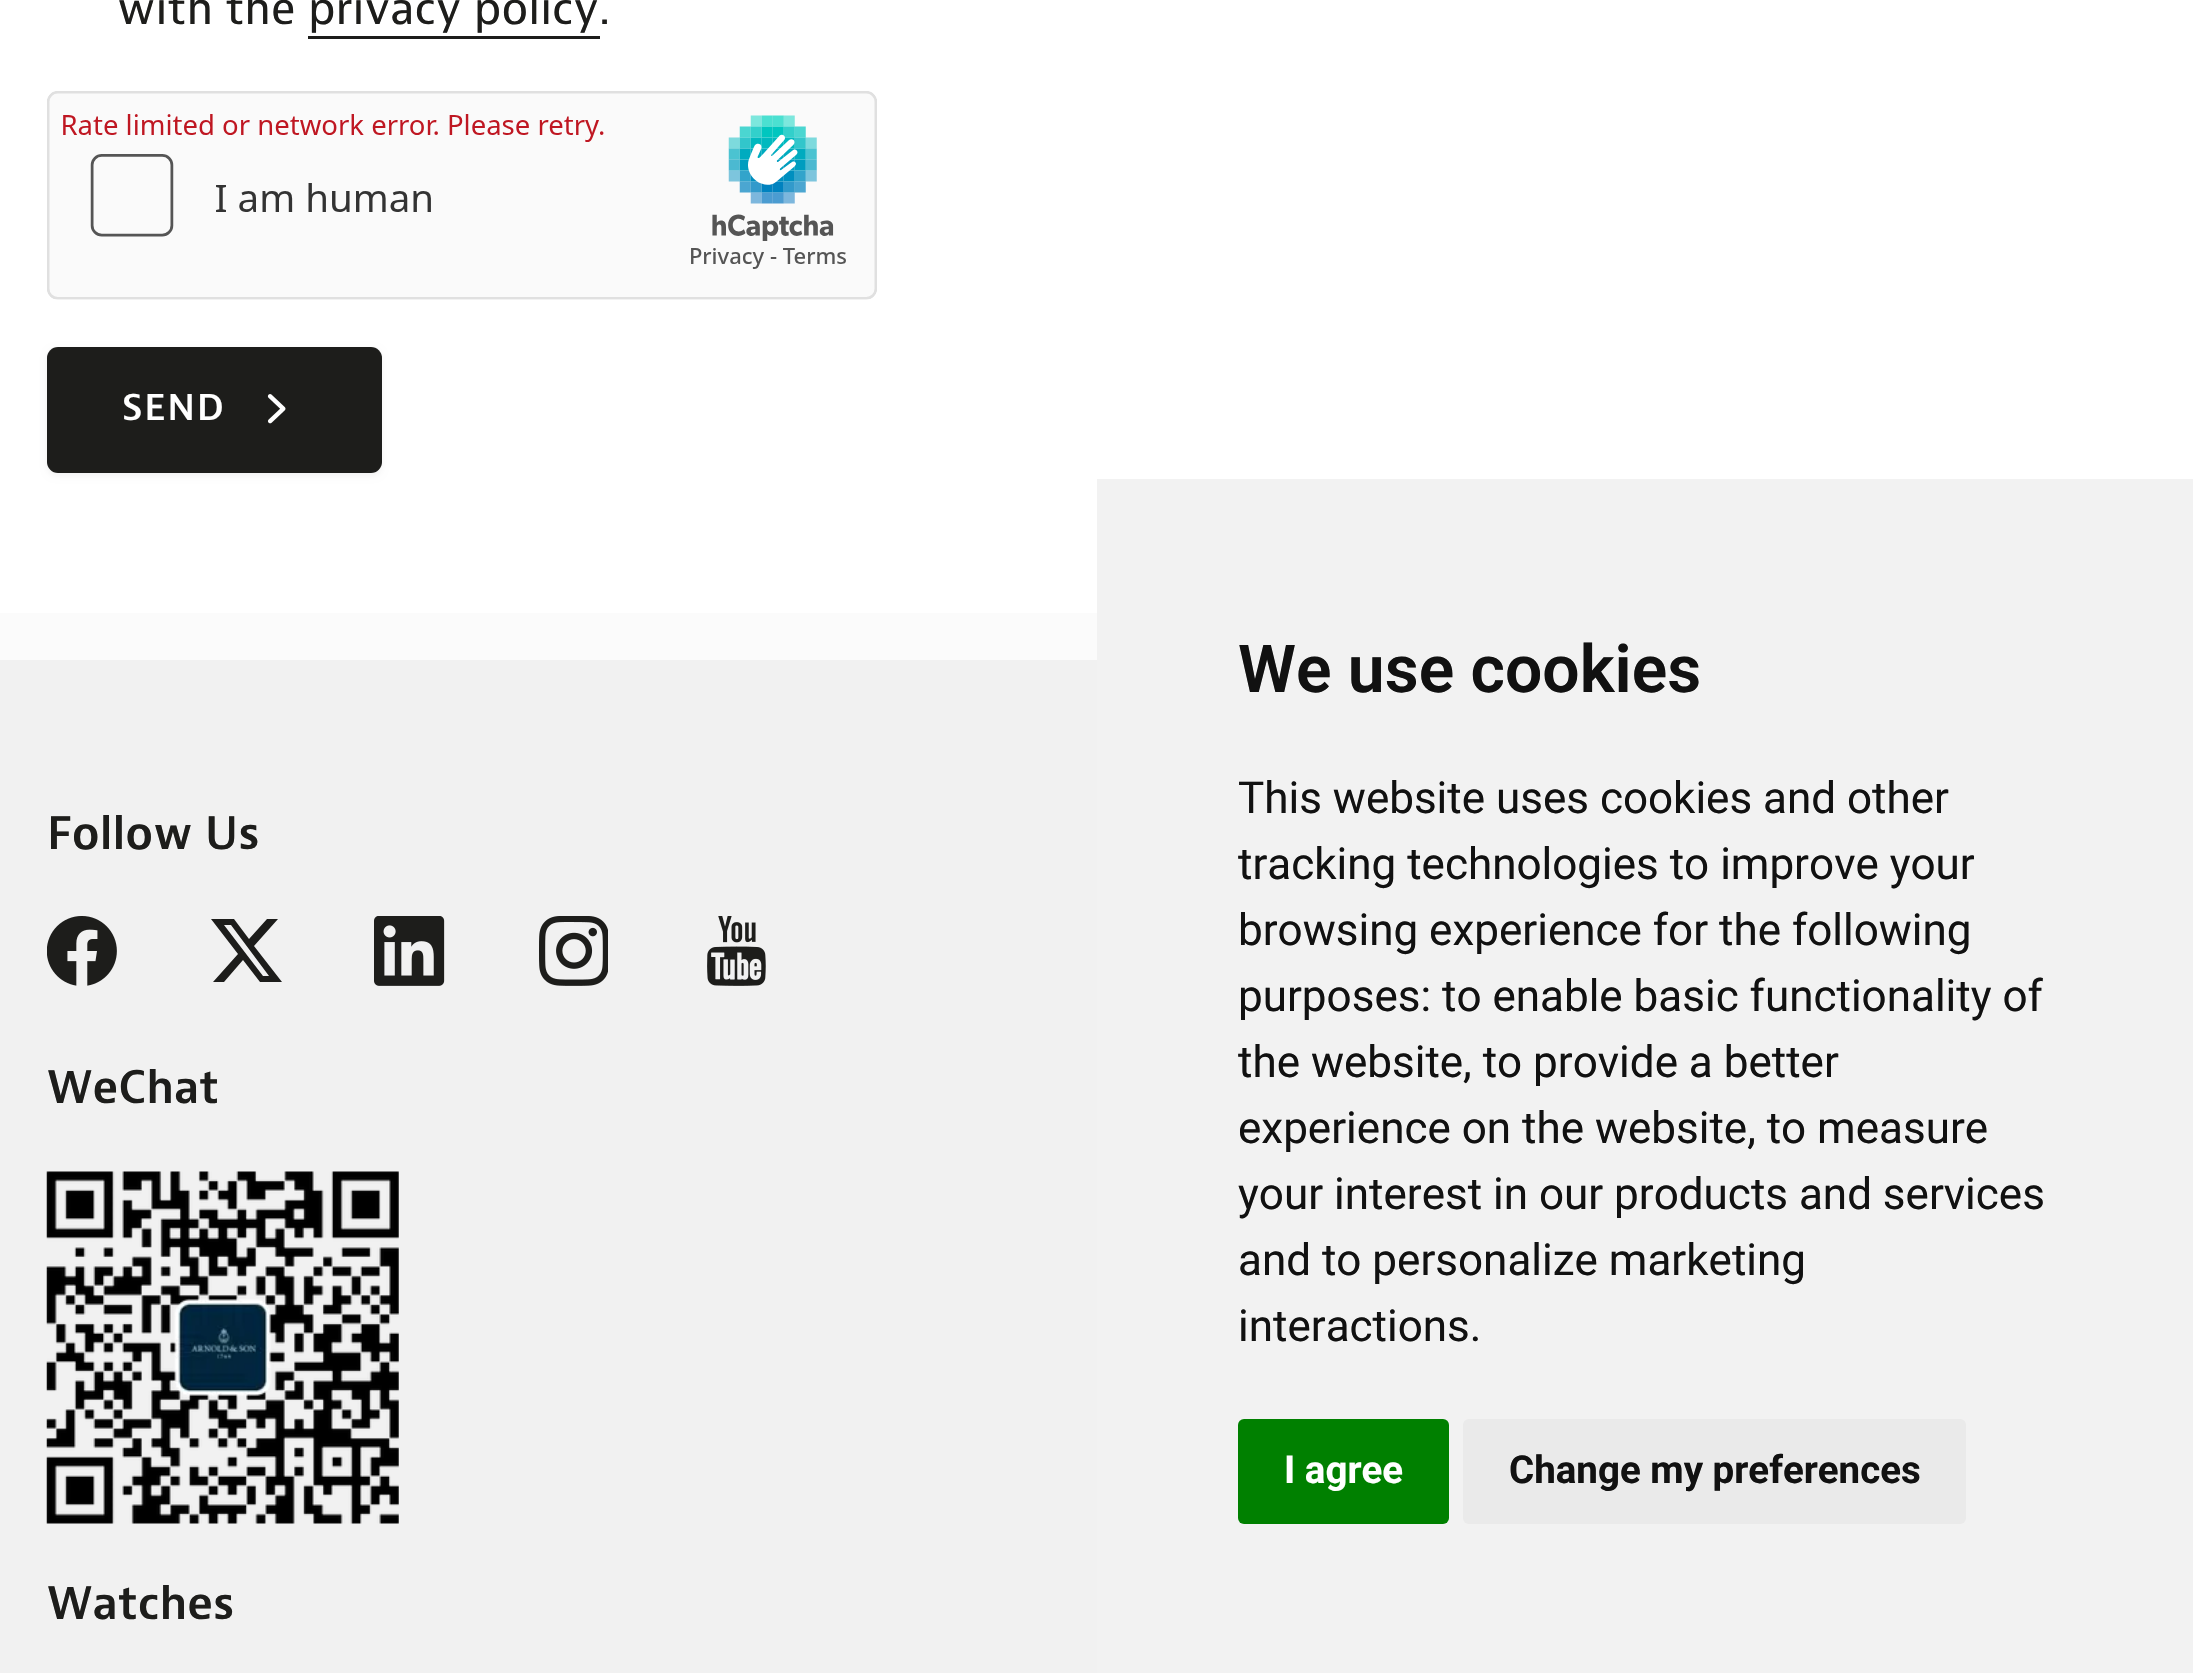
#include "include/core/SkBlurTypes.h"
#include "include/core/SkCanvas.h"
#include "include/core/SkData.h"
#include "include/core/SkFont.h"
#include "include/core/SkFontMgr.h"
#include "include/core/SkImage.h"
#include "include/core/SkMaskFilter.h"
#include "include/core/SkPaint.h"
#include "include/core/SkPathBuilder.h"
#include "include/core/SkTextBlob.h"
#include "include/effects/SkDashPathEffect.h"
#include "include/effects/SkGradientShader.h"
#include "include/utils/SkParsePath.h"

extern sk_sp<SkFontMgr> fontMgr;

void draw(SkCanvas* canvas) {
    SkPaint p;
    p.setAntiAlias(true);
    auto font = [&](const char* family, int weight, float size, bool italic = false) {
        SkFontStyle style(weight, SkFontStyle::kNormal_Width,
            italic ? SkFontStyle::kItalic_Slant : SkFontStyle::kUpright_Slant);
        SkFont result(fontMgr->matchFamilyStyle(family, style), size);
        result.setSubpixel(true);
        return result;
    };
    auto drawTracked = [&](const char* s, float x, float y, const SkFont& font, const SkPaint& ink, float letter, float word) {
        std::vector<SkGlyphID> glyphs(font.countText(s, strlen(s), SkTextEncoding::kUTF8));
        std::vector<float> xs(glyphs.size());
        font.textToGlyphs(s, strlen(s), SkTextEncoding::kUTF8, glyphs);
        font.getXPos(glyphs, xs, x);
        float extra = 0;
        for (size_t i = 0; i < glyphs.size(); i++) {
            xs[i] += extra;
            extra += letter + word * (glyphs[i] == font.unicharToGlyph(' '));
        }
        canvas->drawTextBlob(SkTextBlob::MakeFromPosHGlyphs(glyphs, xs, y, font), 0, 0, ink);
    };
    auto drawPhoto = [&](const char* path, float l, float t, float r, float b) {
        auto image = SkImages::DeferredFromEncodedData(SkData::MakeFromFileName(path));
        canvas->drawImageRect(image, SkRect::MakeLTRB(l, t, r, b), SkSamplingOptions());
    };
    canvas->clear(0xFFFFFFFF);
    auto font1 = font("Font", 400, 46.75f);
    p.setColor(0xFF1D1D1B);
    canvas->drawString("with the privacy policy.", 117, 24, font1, p);
    canvas->drawRect(SkRect::MakeLTRB(308, 36, 600, 39), p);
    drawPhoto("media/1.png", 47, 91, 877, 300);
    p.setColor(0x0D000000);
    p.setMaskFilter(SkMaskFilter::MakeBlur(kNormal_SkBlurStyle, 3));
    canvas->drawRoundRect(SkRect::MakeLTRB(47, 349, 382, 476), 11, 11, p);
    p.setMaskFilter(nullptr);
    p.setColor(0xFF1D1D1B);
    canvas->drawRoundRect(SkRect::MakeLTRB(47, 347, 382, 473), 11, 11, p);
    auto font2 = font("Font", 600, 37);
    p.setColor(0xFFFFFFFF);
    drawTracked("SEND", 122, 420, font2, p, 2, 0);
    drawPhoto("media/2.png", 267, 394, 286, 424);
    p.setColor(0xFFF1F1F1);
    canvas->drawRect(SkRect::MakeLTRB(0, 660, 1097, 1673), p);
    p.setColor(0xFFFBFBFB);
    canvas->drawRect(SkRect::MakeLTRB(0, 613, 1097, 660), p);
    auto font3 = font("Font", 600, 46.75f);
    p.setColor(0xFF1D1D1B);
    canvas->drawString("Follow Us", 47, 849, font3, p);
    drawPhoto("media/3.png", 47, 916, 117, 986);
    canvas->drawPath(SkPathBuilder().moveTo(267, 919).lineTo(278, 919).lineTo(254, 946).lineTo(282, 982).lineTo(260, 982).lineTo(243, 960).lineTo(224, 982).lineTo(213, 982).lineTo(238, 954).lineTo(211, 919).lineTo(234, 919).lineTo(249, 939).close().moveTo(263, 976).lineTo(269, 976).lineTo(231, 925).lineTo(224, 925).close().detach(), p);
    drawPhoto("media/4.png", 374, 916, 445, 986);
    drawPhoto("media/5.png", 539, 916, 608, 986);
    drawPhoto("media/6.png", 707, 916, 766, 986);
    canvas->drawString("WeChat", 47, 1103, font3, p);
    drawPhoto("media/7.png", 46, 1171, 399, 1524);
    canvas->drawString("Watches", 47, 1619, font3, p);
    p.setColor(0xFFF2F2F2);
    canvas->drawRect(SkRect::MakeLTRB(1097, 479, 2193, 1673), p);
    auto font4 = font("Roboto", 600, 66);
    p.setColor(0xFF111111);
    canvas->drawString("We use cookies", 1238, 692, font4, p);
    auto font5 = font("Roboto", 400, 44);
    {
        const struct { const char* s; float x, y; } items[] = {
            {"This website uses cookies and other", 1238, 813},
            {"tracking technologies to improve your", 1238, 879},
            {"browsing experience for the following", 1238, 945},
            {"purposes: to enable basic functionality of", 1238, 1011},
            {"the website, to provide a better", 1238, 1077},
            {"experience on the website, to measure", 1238, 1143},
            {"your interest in our products and services", 1238, 1209},
            {"and to personalize marketing", 1238, 1275},
            {"interactions.", 1238, 1341},
        };
        for (auto [s, x, y] : items) {
            canvas->drawString(s, x, y, font5, p);
        }
    }
    p.setColor(0xFF008000);
    canvas->drawRoundRect(SkRect::MakeLTRB(1238, 1419, 1449, 1524), 6, 6, p);
    auto font6 = font("Roboto", 700, 38.5f);
    p.setColor(0xFFFFFFFF);
    canvas->drawString("I agree", 1284, 1483, font6, p);
    p.setColor(0xFFEAEAEA);
    canvas->drawRoundRect(SkRect::MakeLTRB(1463, 1419, 1966, 1524), 6, 6, p);
    p.setColor(0xFF111111);
    canvas->drawString("Change my preferences", 1509, 1483, font6, p);
}
